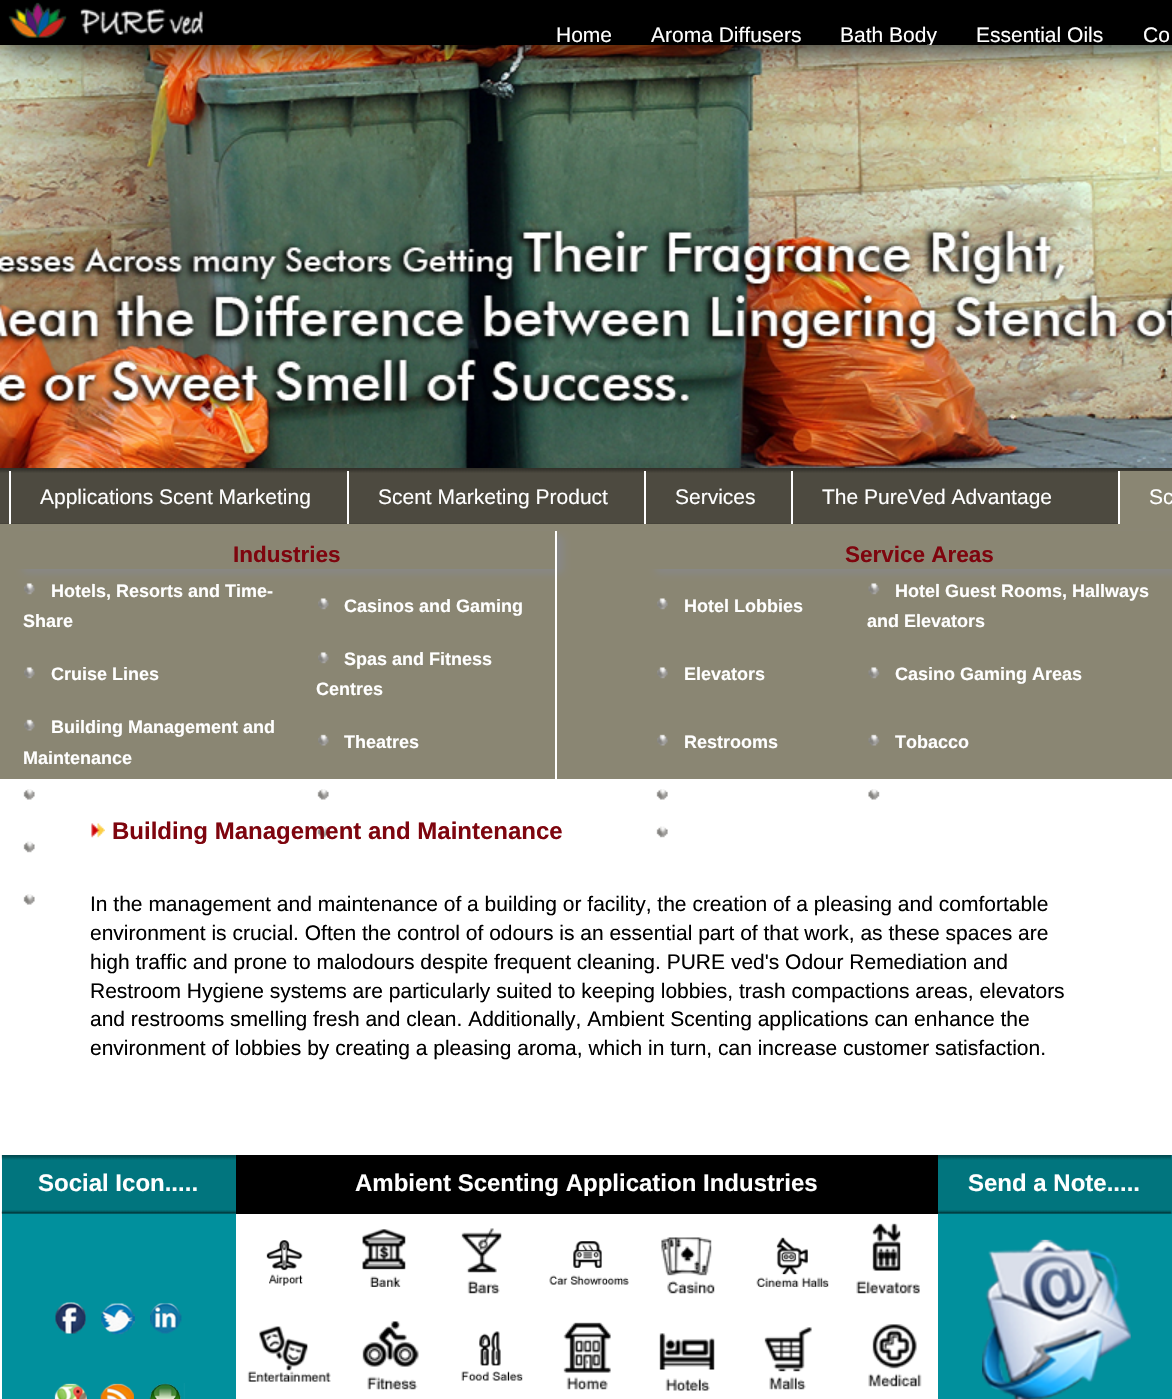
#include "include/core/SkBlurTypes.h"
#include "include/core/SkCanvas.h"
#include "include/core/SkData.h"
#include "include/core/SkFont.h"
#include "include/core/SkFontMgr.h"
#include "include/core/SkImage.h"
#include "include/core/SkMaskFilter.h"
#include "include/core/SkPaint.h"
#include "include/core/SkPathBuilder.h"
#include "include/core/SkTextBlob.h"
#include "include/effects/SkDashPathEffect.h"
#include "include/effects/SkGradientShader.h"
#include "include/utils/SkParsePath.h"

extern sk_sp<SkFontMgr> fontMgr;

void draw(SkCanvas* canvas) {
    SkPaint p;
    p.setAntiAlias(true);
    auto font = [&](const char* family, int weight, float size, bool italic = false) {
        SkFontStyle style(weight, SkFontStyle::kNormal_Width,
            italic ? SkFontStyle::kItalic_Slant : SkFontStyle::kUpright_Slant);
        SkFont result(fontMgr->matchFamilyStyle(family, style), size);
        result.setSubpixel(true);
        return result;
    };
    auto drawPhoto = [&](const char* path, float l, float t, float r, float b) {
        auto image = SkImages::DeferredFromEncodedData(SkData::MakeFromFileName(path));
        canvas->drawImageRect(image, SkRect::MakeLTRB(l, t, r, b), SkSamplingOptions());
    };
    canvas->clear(0xFFFFFFFF);
    drawPhoto("media/2.png", 0, 45, 1172, 468);
    p.setColor(0xFF000000);
    p.setMaskFilter(SkMaskFilter::MakeBlur(kNormal_SkBlurStyle, 18));
    canvas->drawRect(SkRect::MakeLTRB(0, 0, 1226, 45), p);
    p.setMaskFilter(nullptr);
    canvas->drawRect(SkRect::MakeLTRB(0, 0, 1172, 45), p);
    drawPhoto("media/1.png", 8, 2, 203, 38);
    auto font1 = font("Liberation Sans", 400, 21);
    p.setColor(0xFFFFFFFF);
    canvas->drawString("Home", 556, 42, font1, p);
    canvas->drawString("Aroma Diffusers", 651, 42, font1, p);
    canvas->save();
    canvas->clipRect(SkRect::MakeLTRB(0, 0, 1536, 45));
    canvas->drawString("Bath Body", 840, 42, font1, p);
    canvas->restore();
    canvas->drawString("Essential Oils", 976, 42, font1, p);
    canvas->drawString("Co", 1143, 42, font1, p);
    p.setColor(0xFF4D4A40);
    canvas->drawRect(SkRect::MakeLTRB(0, 468, 1172, 524), p);
    drawPhoto("media/3.png", 0, 468, 1172, 524);
    p.setColor(0xFFFFFFFF);
    canvas->drawString("Applications Scent Marketing", 40, 504, font1, p);
    p.setColor(0xFF8A8673);
    canvas->drawRect(SkRect::MakeLTRB(0, 524, 1172, 779), p);
    canvas->save();
    canvas->clipPath(SkPathBuilder(SkPathFillType::kEvenOdd).moveTo(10, 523).lineTo(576, 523).lineTo(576, 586).lineTo(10, 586).close().moveTo(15, 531).lineTo(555, 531).lineTo(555, 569).lineTo(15, 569).close().detach(), true);
    p.setColor(0xFF888888);
    p.setMaskFilter(SkMaskFilter::MakeBlur(kNormal_SkBlurStyle, 4));
    canvas->drawRect(SkRect::MakeLTRB(23, 536, 563, 573), p);
    p.setMaskFilter(nullptr);
    canvas->restore();
    p.setColor(0xFFFFFFFF);
    canvas->drawRect(SkRect::MakeLTRB(9, 471, 11, 524), p);
    canvas->drawString("Scent Marketing Product", 378, 504, font1, p);
    canvas->drawRect(SkRect::MakeLTRB(347, 471, 349, 524), p);
    canvas->drawString("Services", 675, 504, font1, p);
    canvas->save();
    canvas->clipPath(SkPathBuilder(SkPathFillType::kEvenOdd).moveTo(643, 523).lineTo(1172, 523).lineTo(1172, 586).lineTo(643, 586).close().moveTo(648, 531).lineTo(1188, 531).lineTo(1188, 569).lineTo(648, 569).close().detach(), true);
    p.setColor(0xFF888888);
    p.setMaskFilter(SkMaskFilter::MakeBlur(kNormal_SkBlurStyle, 4));
    canvas->drawRect(SkRect::MakeLTRB(656, 536, 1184, 573), p);
    p.setMaskFilter(nullptr);
    canvas->restore();
    p.setColor(0xFFFFFFFF);
    canvas->drawRect(SkRect::MakeLTRB(644, 471, 646, 524), p);
    canvas->drawString("The PureVed Advantage", 822, 504, font1, p);
    canvas->drawRect(SkRect::MakeLTRB(791, 471, 793, 524), p);
    p.setColor(0xFF8A8673);
    canvas->drawRect(SkRect::MakeLTRB(1120, 471, 1172, 524), p);
    p.setColor(0xFFFFFFFF);
    canvas->drawString("Sc", 1149, 504, font1, p);
    canvas->drawRect(SkRect::MakeLTRB(1118, 471, 1120, 524), p);
    auto font2 = font("Liberation Sans", 700, 22.5f);
    p.setColor(0xFF7E050E);
    canvas->drawString("Industries", 233, 562, font2, p);
    p.setColor(0xFFFFFFFF);
    canvas->drawRect(SkRect::MakeLTRB(555, 531, 557, 779), p);
    p.setColor(0xFF7E050E);
    canvas->drawString("Service Areas", 845, 562, font2, p);
    drawPhoto("media/4.png", 24, 583, 35, 595);
    auto font3 = font("Liberation Sans", 700, 18);
    p.setColor(0xFFFFFFFF);
    canvas->drawString("Hotels, Resorts and Time-", 51, 597, font3, p);
    canvas->drawString("Share", 23, 627, font3, p);
    drawPhoto("media/4.png", 318, 598, 329, 610);
    canvas->drawString("Casinos and Gaming", 344, 612, font3, p);
    drawPhoto("media/5.png", 657, 598, 668, 610);
    canvas->drawString("Hotel Lobbies", 684, 612, font3, p);
    drawPhoto("media/6.png", 868, 583, 880, 595);
    canvas->drawString("Hotel Guest Rooms, Hallways", 895, 597, font3, p);
    canvas->drawString("and Elevators", 867, 627, font3, p);
    drawPhoto("media/4.png", 24, 667, 35, 679);
    canvas->drawString("Cruise Lines", 51, 680, font3, p);
    drawPhoto("media/4.png", 318, 652, 329, 664);
    canvas->drawString("Spas and Fitness", 344, 665, font3, p);
    canvas->drawString("Centres", 316, 695, font3, p);
    drawPhoto("media/5.png", 657, 667, 668, 679);
    canvas->drawString("Elevators", 684, 680, font3, p);
    drawPhoto("media/6.png", 868, 667, 880, 679);
    canvas->drawString("Casino Gaming Areas", 895, 680, font3, p);
    drawPhoto("media/7.png", 24, 719, 35, 731);
    canvas->drawString("Building Management and", 51, 733, font3, p);
    canvas->drawString("Maintenance", 23, 764, font3, p);
    drawPhoto("media/7.png", 318, 734, 329, 746);
    canvas->drawString("Theatres", 344, 748, font3, p);
    drawPhoto("media/8.png", 657, 734, 668, 746);
    canvas->drawString("Restrooms", 684, 748, font3, p);
    drawPhoto("media/9.png", 868, 734, 880, 746);
    canvas->drawString("Tobacco", 895, 748, font3, p);
    drawPhoto("media/10.png", 23, 789, 35, 800);
    drawPhoto("media/10.png", 317, 789, 329, 800);
    drawPhoto("media/11.png", 656, 789, 668, 800);
    drawPhoto("media/12.png", 868, 789, 880, 800);
    drawPhoto("media/13.png", 317, 826, 329, 838);
    drawPhoto("media/14.png", 656, 826, 668, 838);
    drawPhoto("media/13.png", 23, 841, 35, 853);
    drawPhoto("media/10.png", 23, 894, 35, 905);
    drawPhoto("media/15.png", 91, 823, 105, 838);
    auto font4 = font("Liberation Sans", 700, 24);
    p.setColor(0xFF7E050E);
    canvas->drawString("Building Management and Maintenance", 112, 839, font4, p);
    p.setColor(0xFF000000);
    {
        const struct { const char* s; float x, y; } items[] = {
            {"In the management and maintenance of a building or facility, the creation of a pleasing and comfortable", 90, 911},
            {"environment is crucial. Often the control of odours is an essential part of that work, as these spaces are", 90, 940},
            {"high traffic and prone to malodours despite frequent cleaning. PURE ved's Odour Remediation and", 90, 969},
            {"Restroom Hygiene systems are particularly suited to keeping lobbies, trash compactions areas, elevators", 90, 998},
            {"and restrooms smelling fresh and clean. Additionally, Ambient Scenting applications can enhance the", 90, 1026},
            {"environment of lobbies by creating a pleasing aroma, which in turn, can increase customer satisfaction.", 90, 1055},
        };
        for (auto [s, x, y] : items) {
            canvas->drawString(s, x, y, font1, p);
        }
    }
    p.setColor(0xFF01757E);
    canvas->drawRect(SkRect::MakeLTRB(2, 1155, 236, 1214), p);
    drawPhoto("media/16.png", 1, 1155, 236, 1214);
    p.setColor(0xFFFFFFFF);
    canvas->drawString("Social Icon.....", 38, 1191, font4, p);
    p.setColor(0xFF000000);
    canvas->drawRect(SkRect::MakeLTRB(236, 1155, 938, 1214), p);
    drawPhoto("media/17.png", 235, 1155, 236, 1214);
    p.setColor(0xFFFFFFFF);
    canvas->drawString("Ambient Scenting Application Industries", 355, 1191, font4, p);
    p.setColor(0xFF01757E);
    canvas->drawRect(SkRect::MakeLTRB(938, 1155, 1172, 1214), p);
    drawPhoto("media/18.png", 938, 1155, 1172, 1214);
    p.setColor(0xFFFFFFFF);
    canvas->drawString("Send a Note.....", 968, 1191, font4, p);
    p.setColor(0xFF01909D);
    canvas->drawRect(SkRect::MakeLTRB(2, 1214, 236, 1399), p);
    drawPhoto("media/19.png", 55, 1302, 86, 1334);
    drawPhoto("media/20.png", 101, 1303, 135, 1335);
    drawPhoto("media/21.png", 150, 1303, 182, 1334);
    drawPhoto("media/22.png", 54, 1383, 87, 1399);
    drawPhoto("media/23.png", 100, 1383, 134, 1399);
    drawPhoto("media/24.png", 149, 1383, 185, 1399);
    drawPhoto("media/25.png", 266, 1240, 303, 1286);
    drawPhoto("media/26.png", 362, 1229, 406, 1287);
    drawPhoto("media/27.png", 461, 1228, 502, 1294);
    drawPhoto("media/28.png", 549, 1241, 629, 1285);
    drawPhoto("media/29.png", 661, 1237, 715, 1294);
    drawPhoto("media/30.png", 756, 1237, 829, 1287);
    drawPhoto("media/31.png", 856, 1223, 920, 1294);
    drawPhoto("media/32.png", 247, 1326, 331, 1382);
    drawPhoto("media/33.png", 362, 1321, 419, 1390);
    drawPhoto("media/34.png", 461, 1331, 523, 1381);
    drawPhoto("media/35.png", 563, 1322, 611, 1390);
    drawPhoto("media/36.png", 659, 1333, 715, 1391);
    drawPhoto("media/37.png", 764, 1327, 812, 1390);
    drawPhoto("media/38.png", 868, 1324, 922, 1387);
    canvas->drawRect(SkRect::MakeLTRB(938, 1214, 1172, 1399), p);
    drawPhoto("media/39.png", 981, 1239, 1131, 1399);
}
